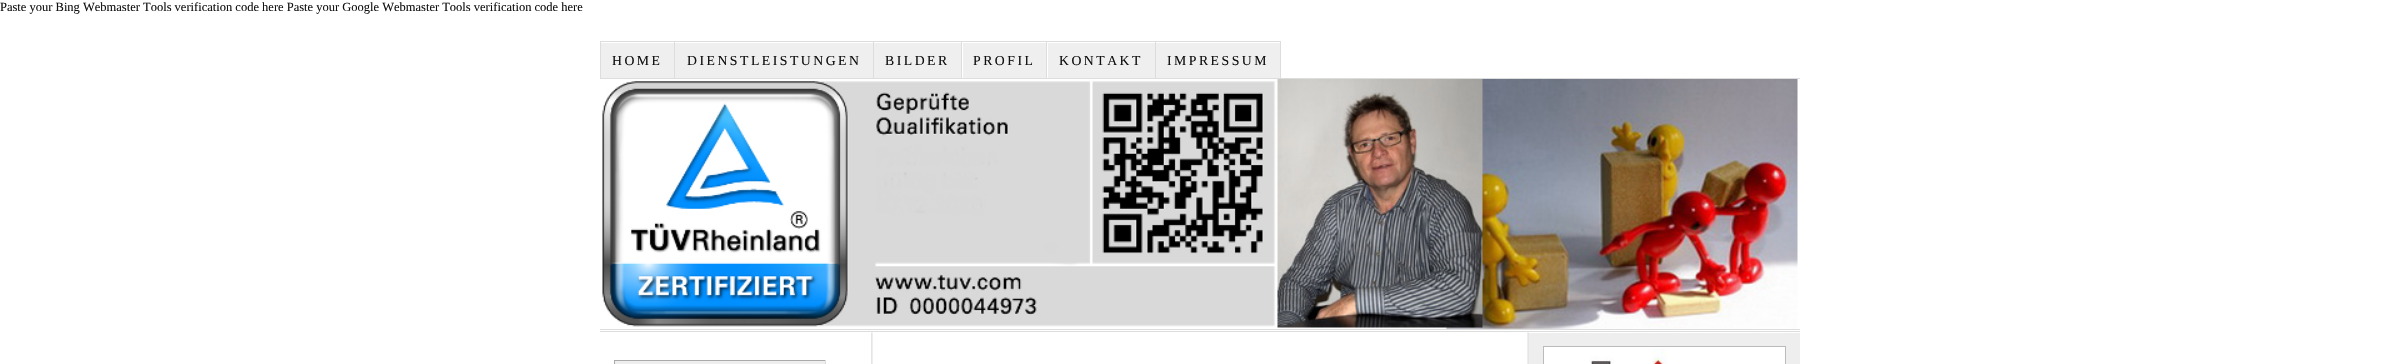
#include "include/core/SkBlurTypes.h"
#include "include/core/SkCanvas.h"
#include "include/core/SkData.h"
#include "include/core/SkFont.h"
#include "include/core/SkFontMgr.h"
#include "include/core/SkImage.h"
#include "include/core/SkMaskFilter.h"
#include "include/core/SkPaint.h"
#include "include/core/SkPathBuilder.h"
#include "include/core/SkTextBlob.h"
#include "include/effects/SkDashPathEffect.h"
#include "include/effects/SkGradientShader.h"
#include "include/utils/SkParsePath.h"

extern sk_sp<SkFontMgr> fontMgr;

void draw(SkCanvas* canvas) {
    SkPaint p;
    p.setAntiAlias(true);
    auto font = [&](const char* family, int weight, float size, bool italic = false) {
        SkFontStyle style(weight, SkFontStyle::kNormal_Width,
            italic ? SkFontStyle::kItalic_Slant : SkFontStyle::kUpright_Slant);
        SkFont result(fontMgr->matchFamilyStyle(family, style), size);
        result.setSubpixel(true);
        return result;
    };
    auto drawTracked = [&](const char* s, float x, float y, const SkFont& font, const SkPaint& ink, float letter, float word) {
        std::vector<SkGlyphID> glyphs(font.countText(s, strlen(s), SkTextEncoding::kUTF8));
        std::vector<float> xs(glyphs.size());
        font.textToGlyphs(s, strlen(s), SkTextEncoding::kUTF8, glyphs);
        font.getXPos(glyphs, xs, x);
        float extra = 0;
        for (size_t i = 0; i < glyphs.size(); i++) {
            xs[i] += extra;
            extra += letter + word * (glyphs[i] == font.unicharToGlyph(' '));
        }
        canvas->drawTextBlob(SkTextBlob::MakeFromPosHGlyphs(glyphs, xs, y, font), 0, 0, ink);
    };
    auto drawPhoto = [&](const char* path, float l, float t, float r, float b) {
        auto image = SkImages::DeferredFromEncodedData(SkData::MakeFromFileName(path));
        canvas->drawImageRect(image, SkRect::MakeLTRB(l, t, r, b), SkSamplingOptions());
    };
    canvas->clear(0xFFFFFFFF);
    auto font1 = font("Liberation Serif", 400, 12.5f);
    p.setColor(0xFF111111);
    canvas->drawString("Paste your Bing Webmaster Tools verification code here Paste your Google Webmaster Tools verification code here", 0, 11, font1, p);
    {
        const struct { float l, t, r, b; SkColor color; } items[] = {
            {600, 78, 1800, 79, 0xFFDDDDDD},
            {600, 41, 601, 79, 0xFFDDDDDD},
            {601, 43, 674, 78, 0xFFEFEFEF},
            {601, 41, 1281, 42, 0xFFDDDDDD},
            {674, 41, 675, 79, 0xFFDDDDDD},
        };
        for (auto [l, t, r, b, color] : items) {
            p.setColor(color);
            canvas->drawRect(SkRect::MakeLTRB(l, t, r, b), p);
        }
    }
    auto font2 = font("Liberation Serif", 400, 13.75f);
    p.setColor(0xFF111111);
    drawTracked("HOME", 612, 65, font2, p, 2.5f, 0);
    p.setColor(0xFFEFEFEF);
    canvas->drawRect(SkRect::MakeLTRB(675, 43, 873, 78), p);
    p.setColor(0xFFDDDDDD);
    canvas->drawRect(SkRect::MakeLTRB(873, 41, 874, 79), p);
    p.setColor(0xFF111111);
    drawTracked("DIENSTLEISTUNGEN", 687, 65, font2, p, 2.5f, 0);
    p.setColor(0xFFEFEFEF);
    canvas->drawRect(SkRect::MakeLTRB(874, 43, 961, 78), p);
    p.setColor(0xFFDDDDDD);
    canvas->drawRect(SkRect::MakeLTRB(961, 41, 962, 79), p);
    p.setColor(0xFF111111);
    drawTracked("BILDER", 885, 65, font2, p, 2.5f, 0);
    p.setColor(0xFFEFEFEF);
    canvas->drawRect(SkRect::MakeLTRB(963, 43, 1046, 78), p);
    p.setColor(0xFFDDDDDD);
    canvas->drawRect(SkRect::MakeLTRB(1046, 41, 1047, 79), p);
    p.setColor(0xFF111111);
    drawTracked("PROFIL", 973, 65, font2, p, 2.5f, 0);
    p.setColor(0xFFEFEFEF);
    canvas->drawRect(SkRect::MakeLTRB(1048, 43, 1155, 78), p);
    p.setColor(0xFFDDDDDD);
    canvas->drawRect(SkRect::MakeLTRB(1155, 41, 1156, 79), p);
    p.setColor(0xFF111111);
    drawTracked("KONTAKT", 1059, 65, font2, p, 2.5f, 0);
    p.setColor(0xFFEFEFEF);
    canvas->drawRect(SkRect::MakeLTRB(1156, 43, 1280, 78), p);
    p.setColor(0xFFDDDDDD);
    canvas->drawRect(SkRect::MakeLTRB(1280, 41, 1281, 79), p);
    p.setColor(0xFF111111);
    drawTracked("IMPRESSUM", 1167, 65, font2, p, 2.5f, 0);
    drawPhoto("media/1.png", 602, 79, 1798, 329);
    p.setColor(0xFFDDDDDD);
    canvas->drawRect(SkRect::MakeLTRB(600, 329, 1800, 330), p);
    canvas->drawRect(SkRect::MakeLTRB(600, 331, 1800, 332), p);
    drawPhoto("media/2.png", 1527, 332, 1529, 364);
    drawPhoto("media/3.png", 871, 332, 873, 364);
    {
        const struct { float l, t, r, b; SkColor color; } items[] = {
            {614, 361, 826, 364, 0xFFEEEEEE},
            {614, 360, 826, 361, 0xFFAAAAAA},
            {825, 360, 826, 364, 0xFFDDDDDD},
            {614, 360, 615, 364, 0xFFAAAAAA},
            {1529, 333, 1800, 364, 0xFFEEEEEE},
        };
        for (auto [l, t, r, b, color] : items) {
            p.setColor(color);
            canvas->drawRect(SkRect::MakeLTRB(l, t, r, b), p);
        }
    }
    p.setColor(0xFFFFFFFF);
    canvas->drawRect(SkRect::MakeLTRB(1543.5f, 346.5f, 1785.5f, 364.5f), p);
    p.setStyle(SkPaint::kStroke_Style);
    p.setStrokeWidth(1);
    p.setColor(0xFFBBBBBB);
    canvas->drawRect(SkRect::MakeLTRB(1543.5f, 346.5f, 1785.5f, 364.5f), p);
    drawPhoto("media/4.png", 1590, 349, 1667, 364);
}
